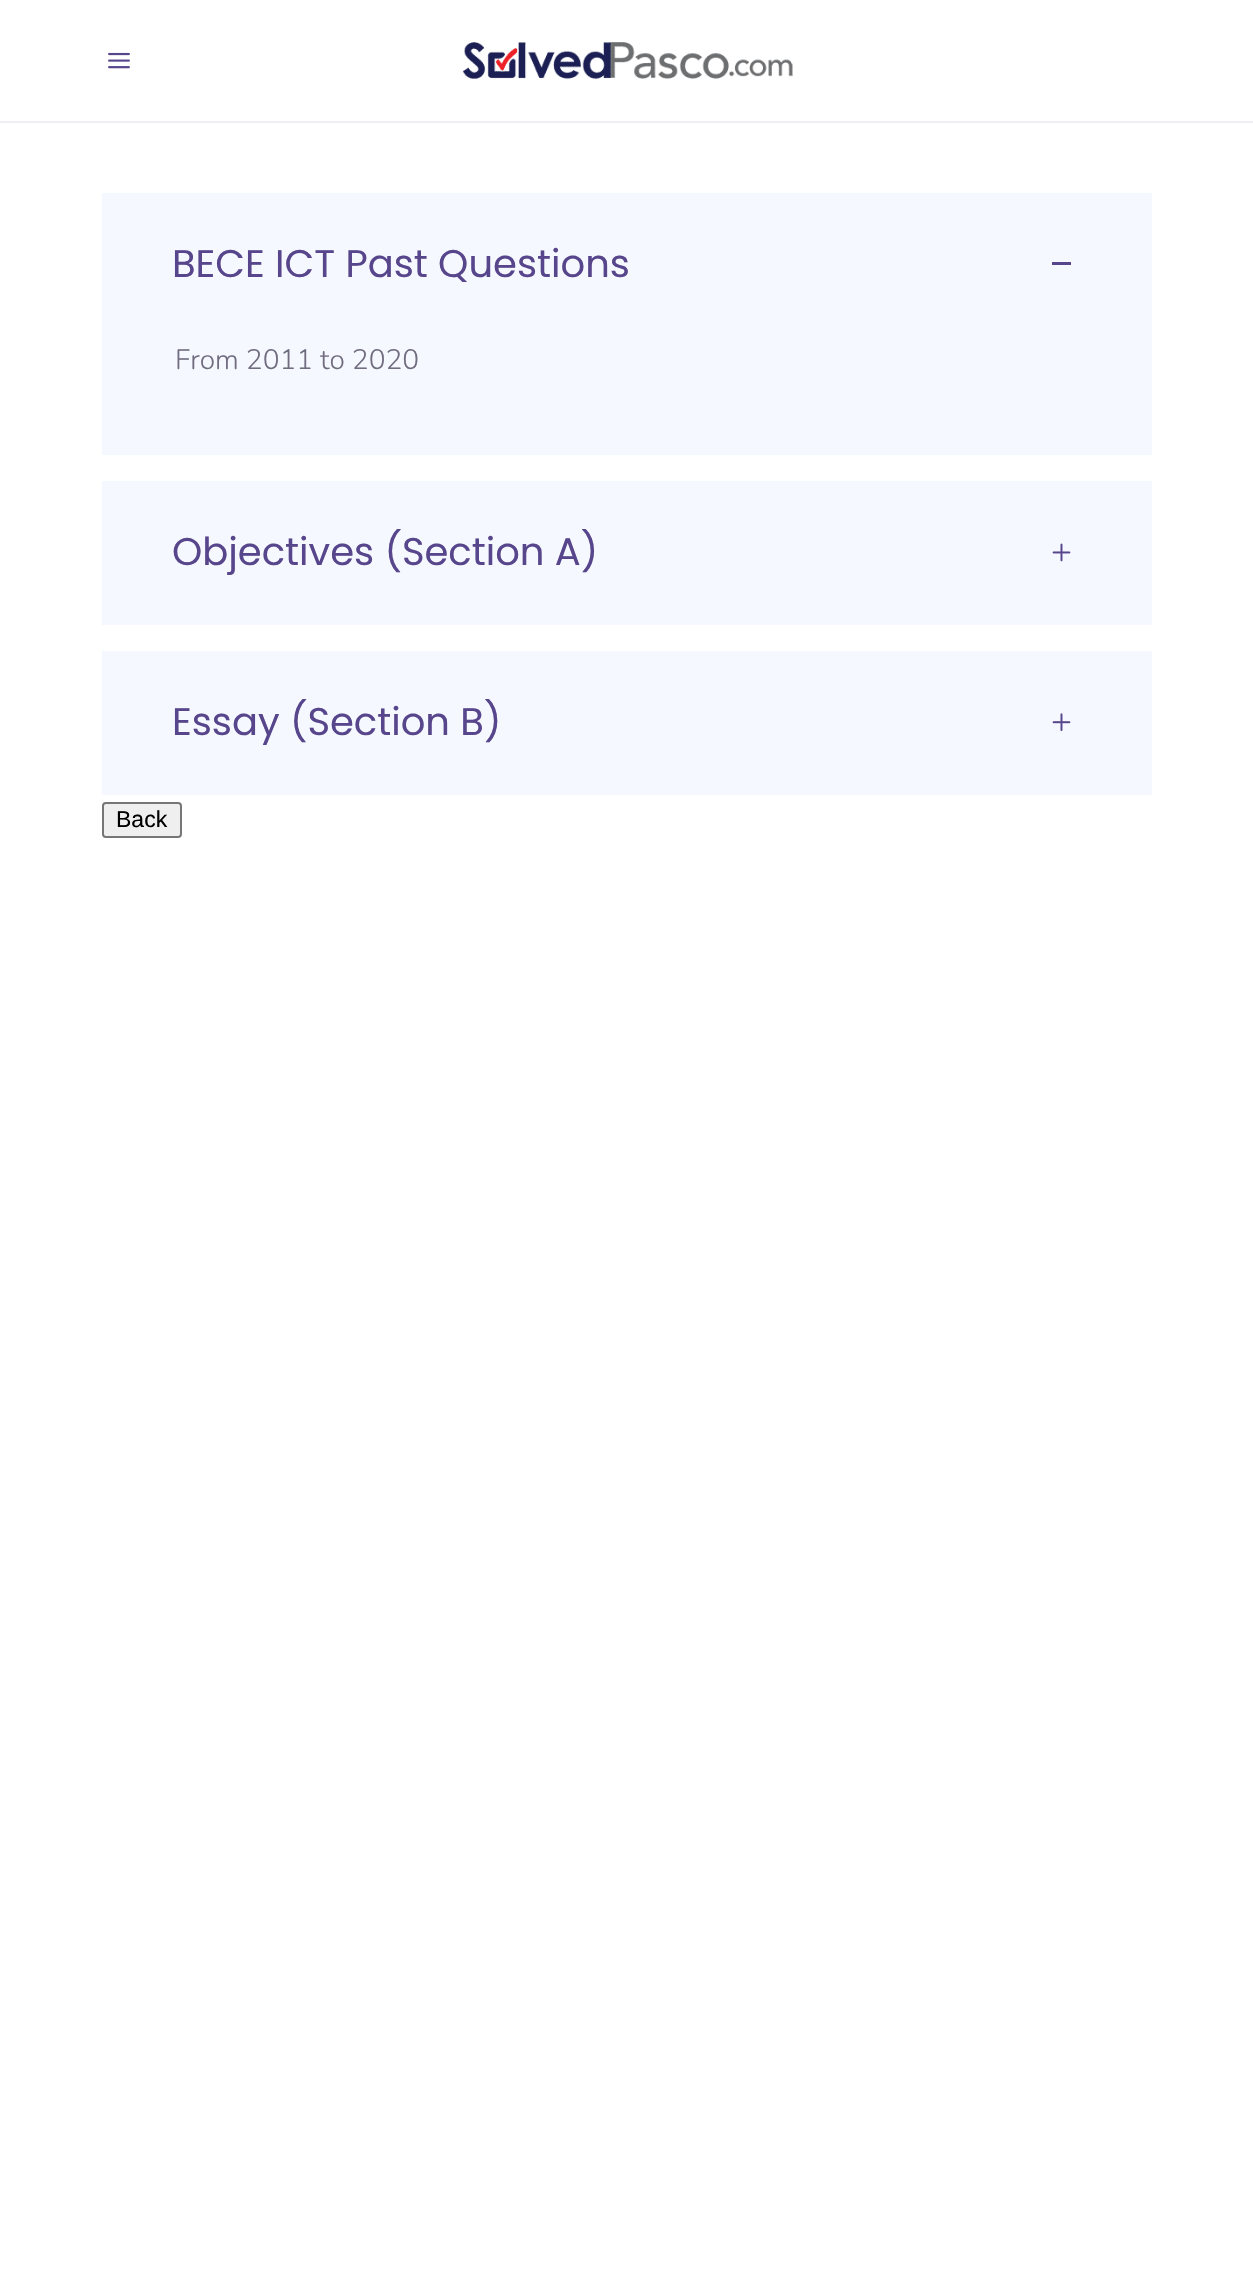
#include "include/core/SkBlurTypes.h"
#include "include/core/SkCanvas.h"
#include "include/core/SkData.h"
#include "include/core/SkFont.h"
#include "include/core/SkFontMgr.h"
#include "include/core/SkImage.h"
#include "include/core/SkMaskFilter.h"
#include "include/core/SkPaint.h"
#include "include/core/SkPathBuilder.h"
#include "include/core/SkTextBlob.h"
#include "include/effects/SkDashPathEffect.h"
#include "include/effects/SkGradientShader.h"
#include "include/utils/SkParsePath.h"

extern sk_sp<SkFontMgr> fontMgr;

void draw(SkCanvas* canvas) {
    SkPaint p;
    p.setAntiAlias(true);
    auto font = [&](const char* family, int weight, float size, bool italic = false) {
        SkFontStyle style(weight, SkFontStyle::kNormal_Width,
            italic ? SkFontStyle::kItalic_Slant : SkFontStyle::kUpright_Slant);
        SkFont result(fontMgr->matchFamilyStyle(family, style), size);
        result.setSubpixel(true);
        return result;
    };
    auto drawPhoto = [&](const char* path, float l, float t, float r, float b) {
        auto image = SkImages::DeferredFromEncodedData(SkData::MakeFromFileName(path));
        canvas->drawImageRect(image, SkRect::MakeLTRB(l, t, r, b), SkSamplingOptions());
    };
    canvas->clear(0xFFFFFFFF);
    p.setColor(0xFFEDEFF2);
    canvas->drawRect(SkRect::MakeLTRB(0, 121, 1253, 123), p);
    drawPhoto("media/1.png", 108, 52, 130, 69);
    drawPhoto("media/2.png", 462, 42, 793, 80);
    p.setColor(0xFFF5F9FF);
    canvas->drawRect(SkRect::MakeLTRB(102, 193, 1152, 455), p);
    auto font1 = font("Poppins", 400, 38.5f);
    p.setColor(0xFF58468C);
    canvas->drawString("BECE ICT Past Questions", 172, 277, font1, p);
    canvas->drawRect(SkRect::MakeLTRB(1052, 262, 1071, 265), p);
    auto font2 = font("Nunito", 300, 28);
    p.setColor(0xFF716C80);
    canvas->drawString("From 2011 to 2020", 175, 369, font2, p);
    p.setColor(0xFFF5F9FF);
    canvas->drawRect(SkRect::MakeLTRB(102, 481, 1152, 625), p);
    p.setColor(0xFF58468C);
    canvas->drawString("Objectives (Section A)", 172, 565, font1, p);
    drawPhoto("media/3.png", 1052, 543, 1071, 562);
    p.setColor(0xFFF5F9FF);
    canvas->drawRect(SkRect::MakeLTRB(102, 651, 1152, 795), p);
    p.setColor(0xFF58468C);
    canvas->drawString("Essay (Section B)", 172, 735, font1, p);
    drawPhoto("media/4.png", 1052, 713, 1071, 731);
    p.setColor(0xFFEFEFEF);
    canvas->drawRoundRect(SkRect::MakeLTRB(103, 803, 181, 837), 3, 3, p);
    p.setStyle(SkPaint::kStroke_Style);
    p.setStrokeWidth(2);
    p.setColor(0xFF767676);
    canvas->drawRoundRect(SkRect::MakeLTRB(103, 803, 181, 837), 3, 3, p);
    auto font3 = font("Liberation Sans", 400, 23);
    p.setStyle(SkPaint::kFill_Style);
    p.setColor(0xFF000000);
    canvas->drawString("Back", 116, 827, font3, p);
}
